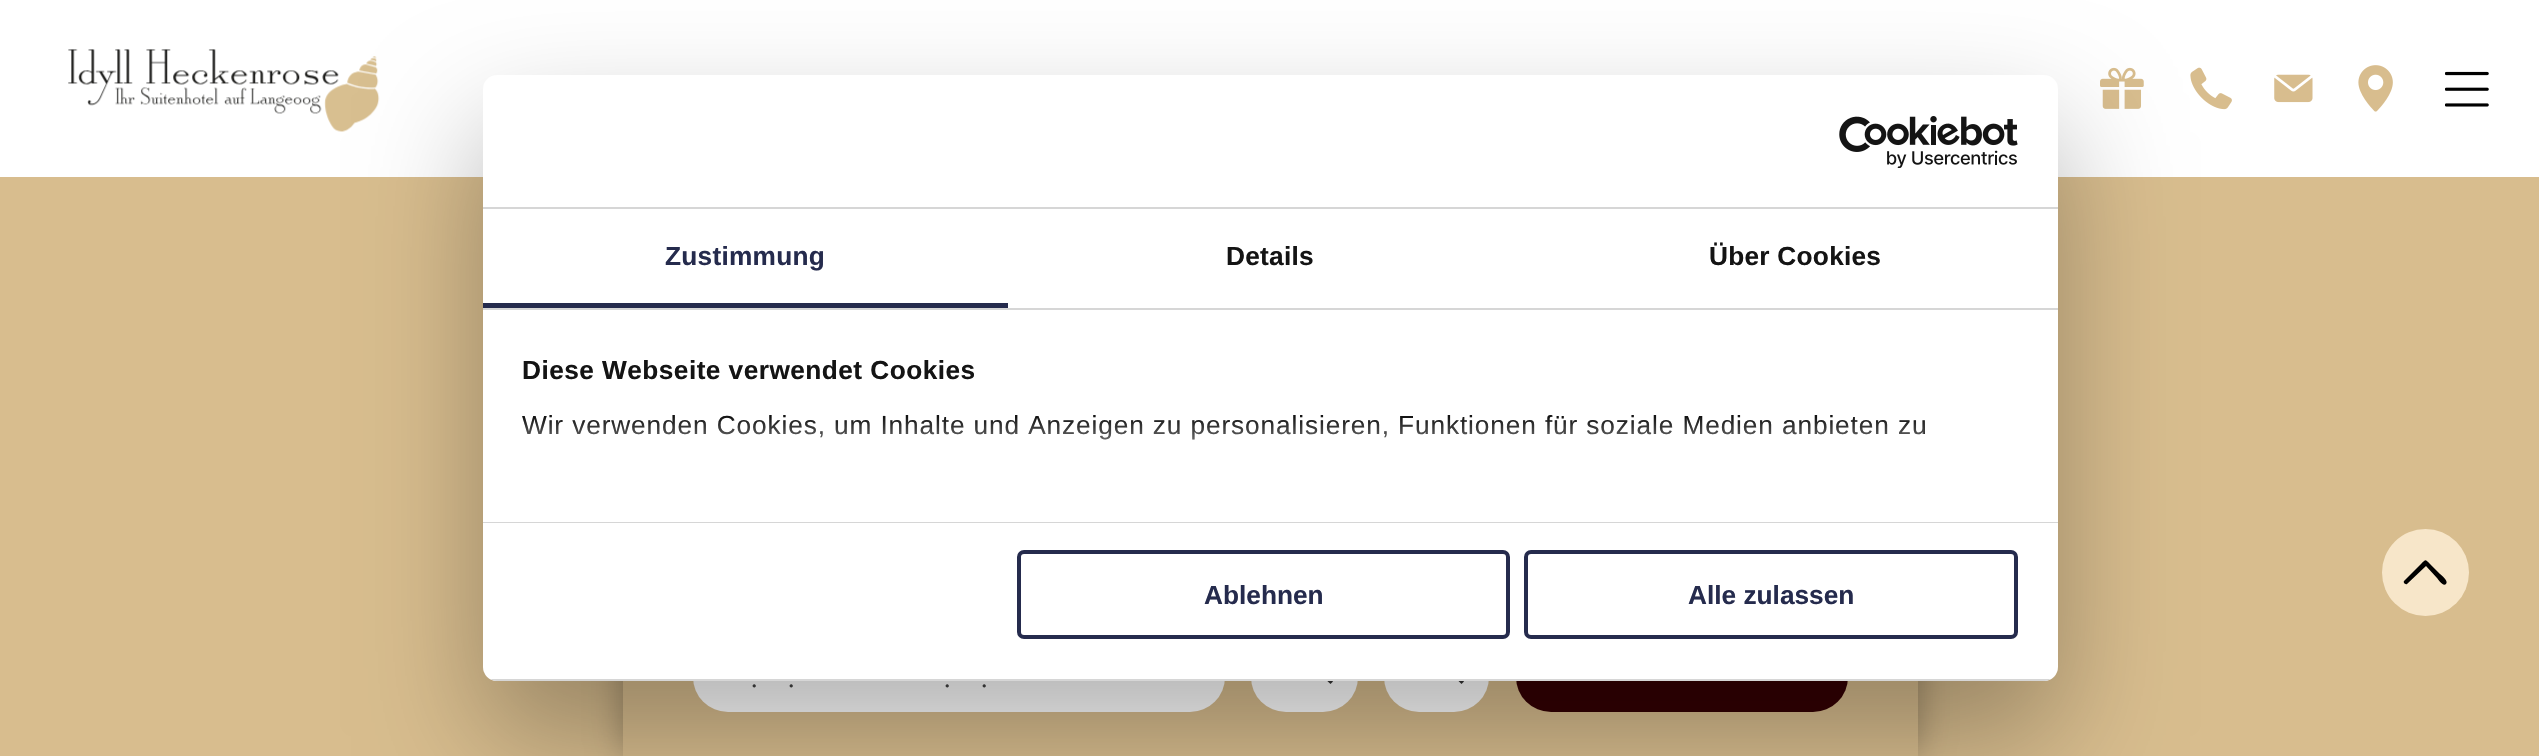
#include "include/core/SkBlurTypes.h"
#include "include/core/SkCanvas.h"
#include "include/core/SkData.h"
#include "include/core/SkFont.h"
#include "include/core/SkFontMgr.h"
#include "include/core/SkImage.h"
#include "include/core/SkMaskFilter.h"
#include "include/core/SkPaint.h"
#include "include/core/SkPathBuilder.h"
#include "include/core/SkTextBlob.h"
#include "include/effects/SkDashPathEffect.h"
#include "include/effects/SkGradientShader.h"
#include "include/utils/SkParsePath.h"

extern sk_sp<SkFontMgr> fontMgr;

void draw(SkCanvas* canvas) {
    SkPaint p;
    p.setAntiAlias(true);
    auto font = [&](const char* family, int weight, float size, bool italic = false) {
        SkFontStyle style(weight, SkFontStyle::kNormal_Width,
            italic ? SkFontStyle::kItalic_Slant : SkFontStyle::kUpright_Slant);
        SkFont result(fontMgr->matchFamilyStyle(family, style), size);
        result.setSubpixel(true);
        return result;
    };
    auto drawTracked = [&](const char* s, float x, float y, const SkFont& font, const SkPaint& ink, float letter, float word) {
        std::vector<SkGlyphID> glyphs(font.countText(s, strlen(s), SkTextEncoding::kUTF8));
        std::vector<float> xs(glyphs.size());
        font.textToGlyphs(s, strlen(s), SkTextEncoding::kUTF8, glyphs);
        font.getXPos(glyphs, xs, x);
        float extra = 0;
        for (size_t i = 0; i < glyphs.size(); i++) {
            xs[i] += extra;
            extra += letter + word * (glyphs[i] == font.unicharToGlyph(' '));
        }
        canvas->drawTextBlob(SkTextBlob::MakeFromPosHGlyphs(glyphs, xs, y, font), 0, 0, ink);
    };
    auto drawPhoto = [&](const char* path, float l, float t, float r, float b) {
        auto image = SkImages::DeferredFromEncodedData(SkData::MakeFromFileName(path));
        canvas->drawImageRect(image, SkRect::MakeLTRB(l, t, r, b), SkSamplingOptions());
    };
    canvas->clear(0xFFD8BD8E);
    p.setColor(0xFFFFFFFF);
    canvas->drawRect(SkRect::MakeLTRB(0, 0, 2539, 177), p);
    drawPhoto("media/2.png", 68, 49, 380, 132);
    drawPhoto("media/3.png", 2100, 67, 2144, 109);
    drawPhoto("media/4.png", 2190, 67, 2232, 110);
    p.setColor(0x4D000000);
    p.setMaskFilter(SkMaskFilter::MakeBlur(kNormal_SkBlurStyle, 17.5f));
    canvas->drawRoundRect(SkRect::MakeLTRB(623, 541, 1918, 756), 18, 18, p);
    p.setMaskFilter(nullptr);
    p.setColor(0xFFD8BD8E);
    canvas->drawRect(SkRect::MakeLTRB(623, 681, 1918, 756), p);
    p.setColor(0xFFFFFFFF);
    canvas->drawRoundRect(SkRect::MakeLTRB(693, 642, 1225, 712), 35, 35, p);
    canvas->drawRoundRect(SkRect::MakeLTRB(1251, 642, 1358, 712), 35, 35, p);
    p.setColor(0xFF333333);
    canvas->drawPath(SkPathBuilder().moveTo(1324, 673).lineTo(1333, 681.5f).lineTo(1330.5f, 684).lineTo(1321.5f, 675.5f).close().detach(), p);
    p.setColor(0xFFFFFFFF);
    canvas->drawRoundRect(SkRect::MakeLTRB(1384, 642, 1489, 712), 35, 35, p);
    p.setColor(0xFF333333);
    canvas->drawPath(SkPathBuilder().moveTo(1455.5f, 673).lineTo(1464, 681.5f).lineTo(1461.5f, 684).lineTo(1453, 675.5f).close().detach(), p);
    p.setColor(0xFF340002);
    canvas->drawRoundRect(SkRect::MakeLTRB(1516, 642, 1848, 712), 35, 35, p);
    p.setColor(0x4D000000);
    p.setMaskFilter(SkMaskFilter::MakeBlur(kNormal_SkBlurStyle, 59.5f));
    canvas->drawRoundRect(SkRect::MakeLTRB(483, 131, 2058, 737), 14, 14, p);
    p.setMaskFilter(nullptr);
    p.setColor(0xFFFFFFFF);
    canvas->drawRoundRect(SkRect::MakeLTRB(483, 75, 2058, 681), 14, 14, p);
    p.setColor(0xFFD6D6D6);
    canvas->drawRect(SkRect::MakeLTRB(483, 207, 2058, 209), p);
    drawPhoto("media/1.png", 1839, 116, 2018, 168);
    canvas->drawRect(SkRect::MakeLTRB(483, 308, 2058, 310), p);
    p.setColor(0xFF252B4D);
    canvas->drawRect(SkRect::MakeLTRB(483, 303, 1008, 308), p);
    auto font1 = font("Liberation Sans", 700, 26.25f);
    drawTracked("Zustimmung", 665, 265, font1, p, 0.25f, 0);
    p.setColor(0xFF141414);
    drawTracked("Details", 1226, 265, font1, p, 0.25f, 0);
    drawTracked("Über Cookies", 1709, 265, font1, p, 0.25f, 0);
    p.setColor(0xFFD6D6D6);
    canvas->drawRect(SkRect::MakeLTRB(483, 522, 2058, 523), p);
    p.setColor(0xFF141414);
    drawTracked("Diese Webseite verwendet Cookies", 522, 379, font1, p, 0.45f, 0);
    auto font2 = font("Liberation Sans", 400, 26.25f);
    drawTracked("Wir verwenden Cookies, um Inhalte und Anzeigen zu personalisieren, Funktionen für soziale Medien anbieten zu", 522, 434, font2, p, 0.88f, 0);
    {
        const SkColor colors[] = {0xFFFFFFFF, 0xCCFFFFFF, 0x00FFFFFF};
        const float stops[] = {0, 0.5f, 1};
        const SkPoint ends[] = {{1252, 522}, {1252, 417}};
        p.setShader(SkGradientShader::MakeLinear(ends, colors, stops, 3, SkTileMode::kClamp));
        p.setAlpha(255);
    }
    canvas->drawRect(SkRect::MakeLTRB(522, 418, 1924, 440), p);
    canvas->save();
    canvas->clipPath(SkPathBuilder().moveTo(497, 75).lineTo(2044, 75).cubicTo(2051.5f, 75, 2058, 81.5f, 2058, 89).lineTo(2058, 667).cubicTo(2058, 674.5f, 2051.5f, 681, 2044, 681).lineTo(497, 681).cubicTo(489.5f, 681, 483, 674.5f, 483, 667).lineTo(483, 89).cubicTo(483, 81.5f, 489.5f, 75, 497, 75).close().detach(), true);
    p.setShader(nullptr);
    p.setColor(0xFFD6D6D6);
    canvas->drawRect(SkRect::MakeLTRB(483, 679, 2058, 681), p);
    canvas->restore();
    p.setStyle(SkPaint::kStroke_Style);
    p.setStrokeWidth(4);
    p.setColor(0xFF252B4D);
    canvas->drawRoundRect(SkRect::MakeLTRB(1019, 552, 1508, 637), 5, 5, p);
    p.setStyle(SkPaint::kFill_Style);
    canvas->drawString("Ablehnen", 1204, 604, font1, p);
    p.setStyle(SkPaint::kStroke_Style);
    canvas->drawRoundRect(SkRect::MakeLTRB(1526, 552, 2016, 637), 5, 5, p);
    p.setStyle(SkPaint::kFill_Style);
    canvas->drawString("Alle zulassen", 1688, 604, font1, p);
    drawPhoto("media/5.png", 2274, 74, 2313, 103);
    drawPhoto("media/6.png", 2358, 65, 2393, 112);
    drawPhoto("media/7.png", 2445, 71, 2489, 107);
    p.setColor(0xFFF7E6C9);
    canvas->drawCircle(2425.5f, 572.5f, 43.5f, p);
    p.setColor(0xFF000000);
    canvas->drawPath(SkPathBuilder().moveTo(2446, 584).cubicTo(2443, 587, 2438, 579, 2437, 578).lineTo(2426, 566).lineTo(2407, 584).cubicTo(2405, 585, 2403, 582, 2404, 581).lineTo(2421, 564).cubicTo(2426, 559, 2425, 559, 2430, 564).lineTo(2440, 574).cubicTo(2441, 575, 2449, 581, 2446, 584).close().detach(), p);
    auto font3 = font("Jost", 400, 28);
    p.setColor(0xFF333333);
    {
        const struct { const char* s; float x, y; } items[] = {
            {".", 750, 687},
            {".", 787, 687},
            {".", 943, 687},
            {".", 980, 687},
        };
        for (auto [s, x, y] : items) {
            canvas->drawString(s, x, y, font3, p);
        }
    }
}
